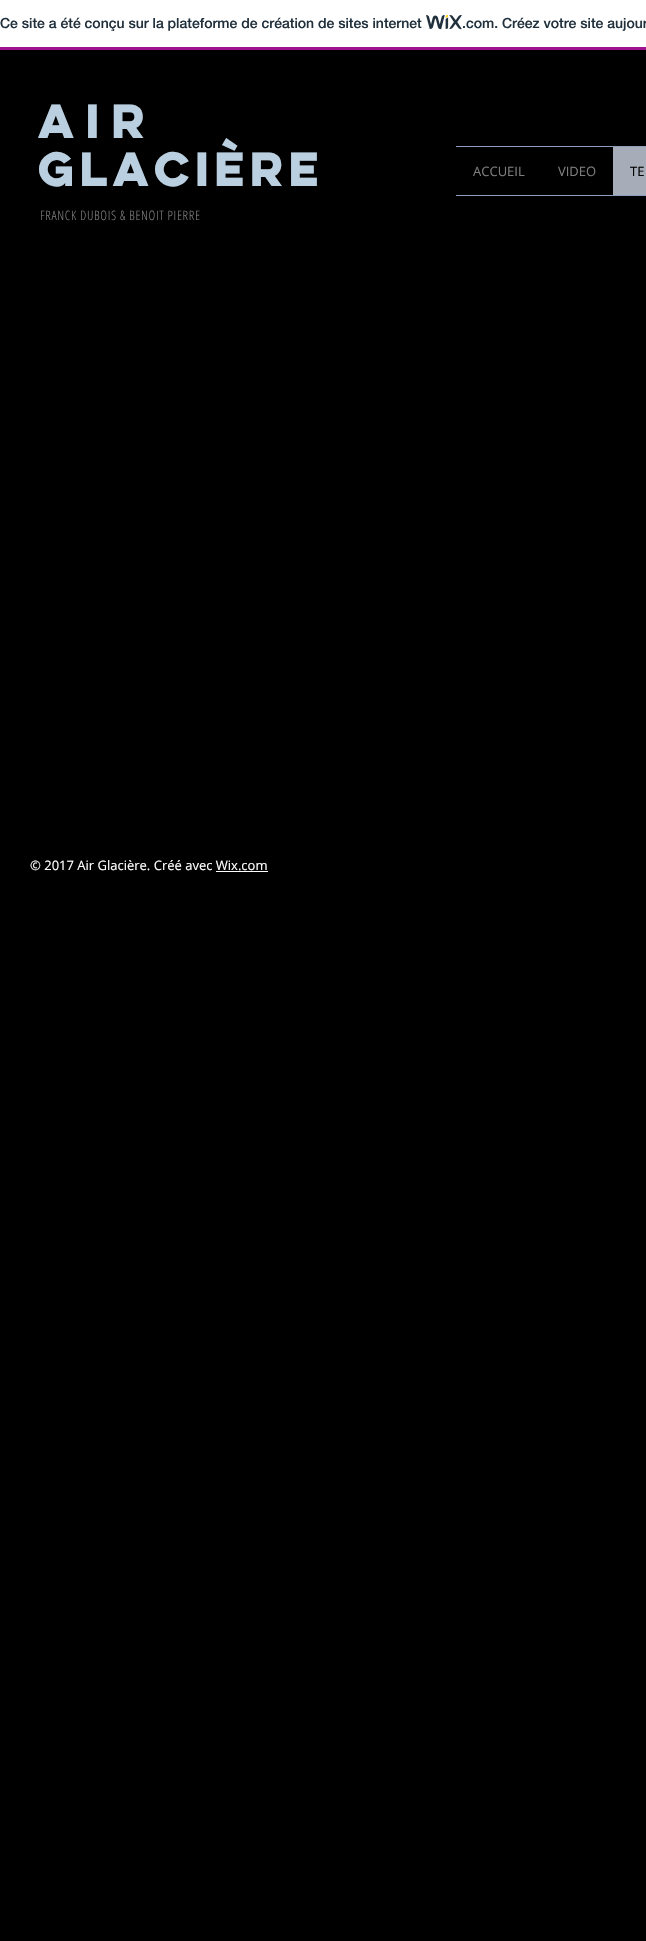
#include "include/core/SkBlurTypes.h"
#include "include/core/SkCanvas.h"
#include "include/core/SkData.h"
#include "include/core/SkFont.h"
#include "include/core/SkFontMgr.h"
#include "include/core/SkImage.h"
#include "include/core/SkMaskFilter.h"
#include "include/core/SkPaint.h"
#include "include/core/SkPathBuilder.h"
#include "include/core/SkTextBlob.h"
#include "include/effects/SkDashPathEffect.h"
#include "include/effects/SkGradientShader.h"
#include "include/utils/SkParsePath.h"

extern sk_sp<SkFontMgr> fontMgr;

void draw(SkCanvas* canvas) {
    SkPaint p;
    p.setAntiAlias(true);
    auto font = [&](const char* family, int weight, float size, bool italic = false) {
        SkFontStyle style(weight, SkFontStyle::kNormal_Width,
            italic ? SkFontStyle::kItalic_Slant : SkFontStyle::kUpright_Slant);
        SkFont result(fontMgr->matchFamilyStyle(family, style), size);
        result.setSubpixel(true);
        return result;
    };
    auto drawTracked = [&](const char* s, float x, float y, const SkFont& font, const SkPaint& ink, float letter, float word) {
        std::vector<SkGlyphID> glyphs(font.countText(s, strlen(s), SkTextEncoding::kUTF8));
        std::vector<float> xs(glyphs.size());
        font.textToGlyphs(s, strlen(s), SkTextEncoding::kUTF8, glyphs);
        font.getXPos(glyphs, xs, x);
        float extra = 0;
        for (size_t i = 0; i < glyphs.size(); i++) {
            xs[i] += extra;
            extra += letter + word * (glyphs[i] == font.unicharToGlyph(' '));
        }
        canvas->drawTextBlob(SkTextBlob::MakeFromPosHGlyphs(glyphs, xs, y, font), 0, 0, ink);
    };
    auto drawPhoto = [&](const char* path, float l, float t, float r, float b) {
        auto image = SkImages::DeferredFromEncodedData(SkData::MakeFromFileName(path));
        canvas->drawImageRect(image, SkRect::MakeLTRB(l, t, r, b), SkSamplingOptions());
    };
    canvas->clear(0xFFFFFFFF);
    p.setColor(0xFFA0138E);
    canvas->drawRect(SkRect::MakeLTRB(0, 47, 646, 50), p);
    auto font1 = font("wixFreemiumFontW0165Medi", 500, 14);
    p.setColor(0xFF20303C);
    canvas->drawString("Ce site a été conçu sur la plateforme de création de sites internet", 0, 28, font1, p);
    drawPhoto("media/1.png", 426, 15, 462, 30);
    canvas->drawString(".com. Créez votre site aujour", 462, 28, font1, p);
    p.setColor(0xFF000000);
    canvas->drawRect(SkRect::MakeLTRB(0, 50, 646, 1941), p);
    auto font2 = font("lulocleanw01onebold", 700, 43);
    p.setColor(0xFFBAD0E0);
    drawTracked("AIR", 38, 138, font2, p, 2, 0);
    drawTracked("GLACIÈRE", 38, 186, font2, p, -4.25f, 0);
    p.setColor(0xFF8E9FBD);
    canvas->drawRect(SkRect::MakeLTRB(456, 146, 646, 147), p);
    canvas->drawRect(SkRect::MakeLTRB(456, 195, 646, 196), p);
    auto font3 = font("Open Sans", 400, 13);
    p.setColor(0xFF7F7E7E);
    canvas->drawString("ACCUEIL", 473, 176, font3, p);
    canvas->drawString("VIDEO", 558, 176, font3, p);
    p.setColor(0xFFA7ADB8);
    canvas->drawRect(SkRect::MakeLTRB(613, 147, 646, 195), p);
    p.setColor(0xFF000000);
    canvas->drawString("TE", 630, 176, font3, p);
    auto font4 = font("Open Sans Condensed", 300, 13);
    p.setColor(0xFF7F7E7E);
    drawTracked("FRANCK DUBOIS & BENOIT PIERRE", 40, 220, font4, p, 0.65f, 0);
    p.setColor(0xFFFFFFFF);
    canvas->drawString("© 2017 Air Glacière. Créé avec Wix.com", 30, 870, font3, p);
    canvas->drawRect(SkRect::MakeLTRB(216, 871, 268, 872), p);
}
